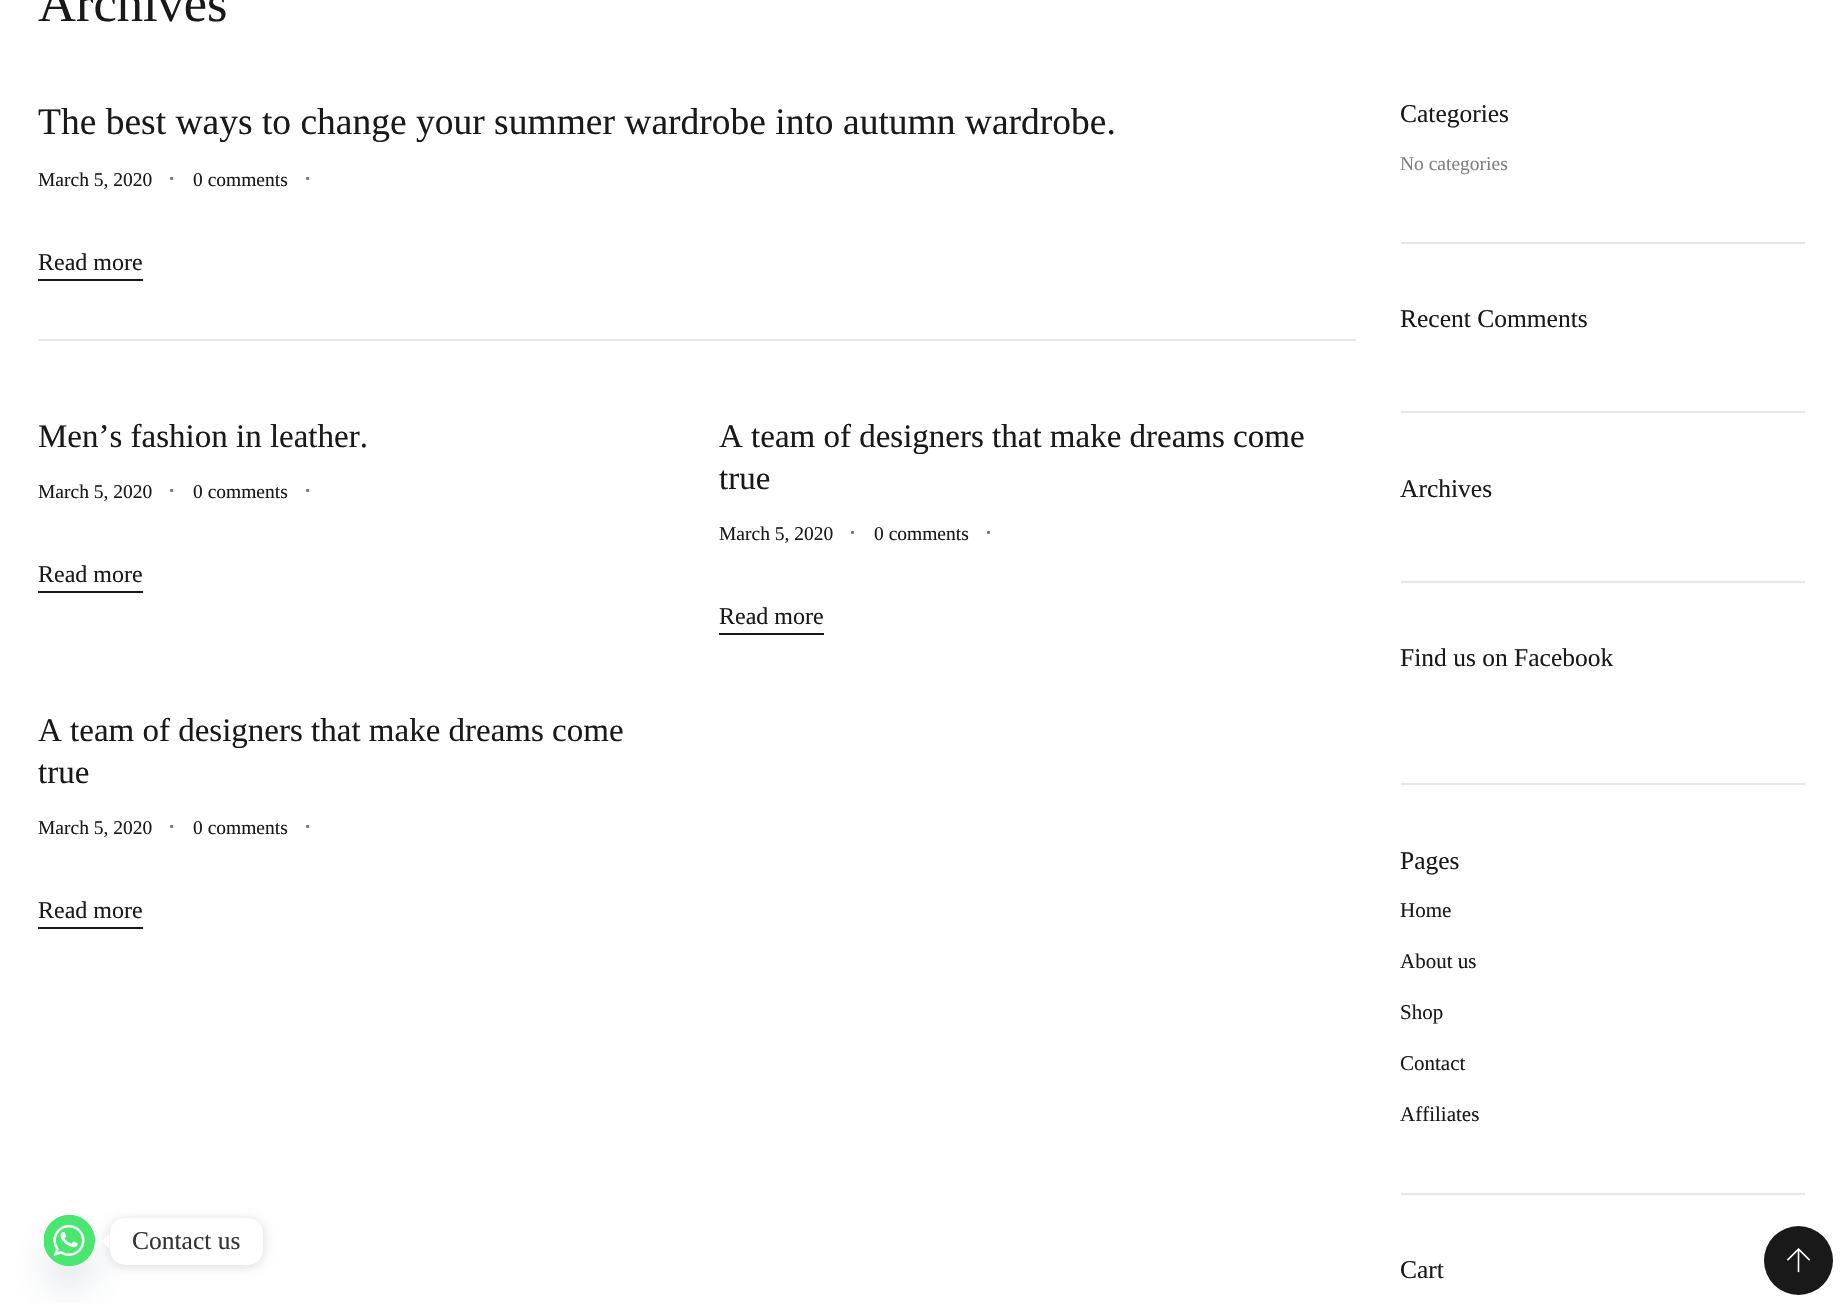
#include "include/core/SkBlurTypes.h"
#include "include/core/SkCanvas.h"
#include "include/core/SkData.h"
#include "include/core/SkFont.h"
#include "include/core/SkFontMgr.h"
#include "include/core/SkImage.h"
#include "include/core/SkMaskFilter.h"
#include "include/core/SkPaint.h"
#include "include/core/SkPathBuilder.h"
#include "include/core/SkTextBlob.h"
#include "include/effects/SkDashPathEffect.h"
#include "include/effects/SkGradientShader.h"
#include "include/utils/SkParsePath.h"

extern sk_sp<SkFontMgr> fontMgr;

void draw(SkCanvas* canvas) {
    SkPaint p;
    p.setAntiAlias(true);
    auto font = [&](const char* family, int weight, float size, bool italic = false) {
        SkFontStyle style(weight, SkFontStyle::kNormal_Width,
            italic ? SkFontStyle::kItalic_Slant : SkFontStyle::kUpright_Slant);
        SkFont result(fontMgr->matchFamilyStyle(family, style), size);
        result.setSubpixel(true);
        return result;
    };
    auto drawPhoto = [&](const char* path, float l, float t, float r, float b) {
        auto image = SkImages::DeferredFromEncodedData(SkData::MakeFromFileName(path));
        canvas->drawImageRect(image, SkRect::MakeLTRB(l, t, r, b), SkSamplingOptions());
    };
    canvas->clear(0xFFFFFFFF);
    auto font1 = font("Liberation Serif", 400, 52.5f);
    p.setColor(0xFF191919);
    canvas->drawString("Archives", 38, 21, font1, p);
    auto font2 = font("Liberation Serif", 400, 37.5f);
    canvas->drawString("The best ways to change your summer wardrobe into autumn wardrobe.", 38, 134, font2, p);
    auto font3 = font("Liberation Serif", 400, 19.5f);
    canvas->drawString("March 5, 2020", 38, 186, font3, p);
    p.setColor(0xFF808080);
    canvas->drawRect(SkRect::MakeLTRB(170, 177, 173, 180), p);
    p.setColor(0xFF191919);
    canvas->drawString("0 comments", 193, 186, font3, p);
    p.setColor(0xFF808080);
    canvas->drawRect(SkRect::MakeLTRB(306, 177, 309, 180), p);
    auto font4 = font("Liberation Serif", 400, 24);
    p.setColor(0xFF191919);
    canvas->drawString("Read more", 38, 270, font4, p);
    canvas->drawRect(SkRect::MakeLTRB(38, 279, 143, 281), p);
    p.setColor(0xFFE6E6E6);
    canvas->drawRect(SkRect::MakeLTRB(38, 339, 1356, 341), p);
    auto font5 = font("Liberation Serif", 400, 33);
    p.setColor(0xFF191919);
    canvas->drawString("Men’s fashion in leather.", 38, 447, font5, p);
    canvas->drawString("March 5, 2020", 38, 498, font3, p);
    p.setColor(0xFF808080);
    canvas->drawRect(SkRect::MakeLTRB(170, 489, 173, 492), p);
    p.setColor(0xFF191919);
    canvas->drawString("0 comments", 193, 498, font3, p);
    p.setColor(0xFF808080);
    canvas->drawRect(SkRect::MakeLTRB(306, 489, 309, 492), p);
    p.setColor(0xFF191919);
    canvas->drawString("Read more", 38, 582, font4, p);
    canvas->drawRect(SkRect::MakeLTRB(38, 591, 143, 593), p);
    canvas->drawString("A team of designers that make dreams come", 719, 447, font5, p);
    canvas->drawString("true", 719, 489, font5, p);
    canvas->drawString("March 5, 2020", 719, 540, font3, p);
    p.setColor(0xFF808080);
    canvas->drawRect(SkRect::MakeLTRB(851, 531, 854, 534), p);
    p.setColor(0xFF191919);
    canvas->drawString("0 comments", 874, 540, font3, p);
    p.setColor(0xFF808080);
    canvas->drawRect(SkRect::MakeLTRB(987, 531, 990, 534), p);
    p.setColor(0xFF191919);
    canvas->drawString("Read more", 719, 624, font4, p);
    canvas->drawRect(SkRect::MakeLTRB(719, 633, 824, 635), p);
    canvas->drawString("A team of designers that make dreams come", 38, 741, font5, p);
    canvas->drawString("true", 38, 783, font5, p);
    canvas->drawString("March 5, 2020", 38, 834, font3, p);
    p.setColor(0xFF808080);
    canvas->drawRect(SkRect::MakeLTRB(170, 825, 173, 828), p);
    p.setColor(0xFF191919);
    canvas->drawString("0 comments", 193, 834, font3, p);
    p.setColor(0xFF808080);
    canvas->drawRect(SkRect::MakeLTRB(306, 825, 309, 828), p);
    p.setColor(0xFF191919);
    canvas->drawString("Read more", 38, 918, font4, p);
    canvas->drawRect(SkRect::MakeLTRB(38, 927, 143, 929), p);
    p.setColor(0xFFE6E6E6);
    canvas->drawRect(SkRect::MakeLTRB(1401, 242, 1805, 244), p);
    auto font6 = font("Liberation Serif", 400, 25.5f);
    p.setColor(0xFF191919);
    canvas->drawString("Categories", 1400, 122, font6, p);
    p.setColor(0xFF808080);
    canvas->drawString("No categories", 1400, 170, font3, p);
    p.setColor(0xFFE6E6E6);
    canvas->drawRect(SkRect::MakeLTRB(1401, 411, 1805, 413), p);
    p.setColor(0xFF191919);
    canvas->drawString("Recent Comments", 1400, 327, font6, p);
    p.setColor(0xFFE6E6E6);
    canvas->drawRect(SkRect::MakeLTRB(1401, 581, 1805, 583), p);
    p.setColor(0xFF191919);
    canvas->drawString("Archives", 1400, 497, font6, p);
    p.setColor(0xFFE6E6E6);
    canvas->drawRect(SkRect::MakeLTRB(1401, 783, 1805, 785), p);
    p.setColor(0xFF191919);
    canvas->drawString("Find us on Facebook", 1400, 666, font6, p);
    p.setColor(0xFFE6E6E6);
    canvas->drawRect(SkRect::MakeLTRB(1401, 1193, 1805, 1195), p);
    p.setColor(0xFF191919);
    canvas->drawString("Pages", 1400, 869, font6, p);
    auto font7 = font("Liberation Serif", 400, 21);
    {
        const struct { const char* s; float x, y; } items[] = {
            {"Home", 1400, 917},
            {"About us", 1400, 968},
            {"Shop", 1400, 1019},
            {"Contact", 1400, 1070},
            {"Affiliates", 1400, 1121},
        };
        for (auto [s, x, y] : items) {
            canvas->drawString(s, x, y, font7, p);
        }
    }
    canvas->drawString("Cart", 1400, 1278, font6, p);
    canvas->drawCircle(1798.5f, 1260.5f, 34.5f, p);
    drawPhoto("media/1.png", 1786, 1248, 1811, 1273);
    p.setColor(0x2949687E);
    p.setMaskFilter(SkMaskFilter::MakeBlur(kNormal_SkBlurStyle, 18));
    canvas->drawRoundRect(SkRect::MakeLTRB(44, 1239, 95, 1290), 25.5f, 25.5f, p);
    p.setMaskFilter(nullptr);
    p.setColor(0xFF49E670);
    canvas->drawCircle(69.5f, 1240.5f, 25.5f, p);
    drawPhoto("media/2.png", 44, 1215, 95, 1266);
    p.setColor(0x26000000);
    p.setMaskFilter(SkMaskFilter::MakeBlur(kNormal_SkBlurStyle, 6));
    canvas->drawRoundRect(SkRect::MakeLTRB(110, 1220, 263, 1266), 15, 15, p);
    p.setMaskFilter(nullptr);
    p.setColor(0xFFFFFFFF);
    canvas->drawRoundRect(SkRect::MakeLTRB(110, 1218, 263, 1265), 15, 15, p);
    canvas->drawPath(SkPathBuilder().moveTo(109.5f, 1234).lineTo(109.5f, 1249).lineTo(102, 1241).close().detach(), p);
    p.setColor(0xFF333333);
    canvas->drawString("Contact us", 132, 1249, font6, p);
}
